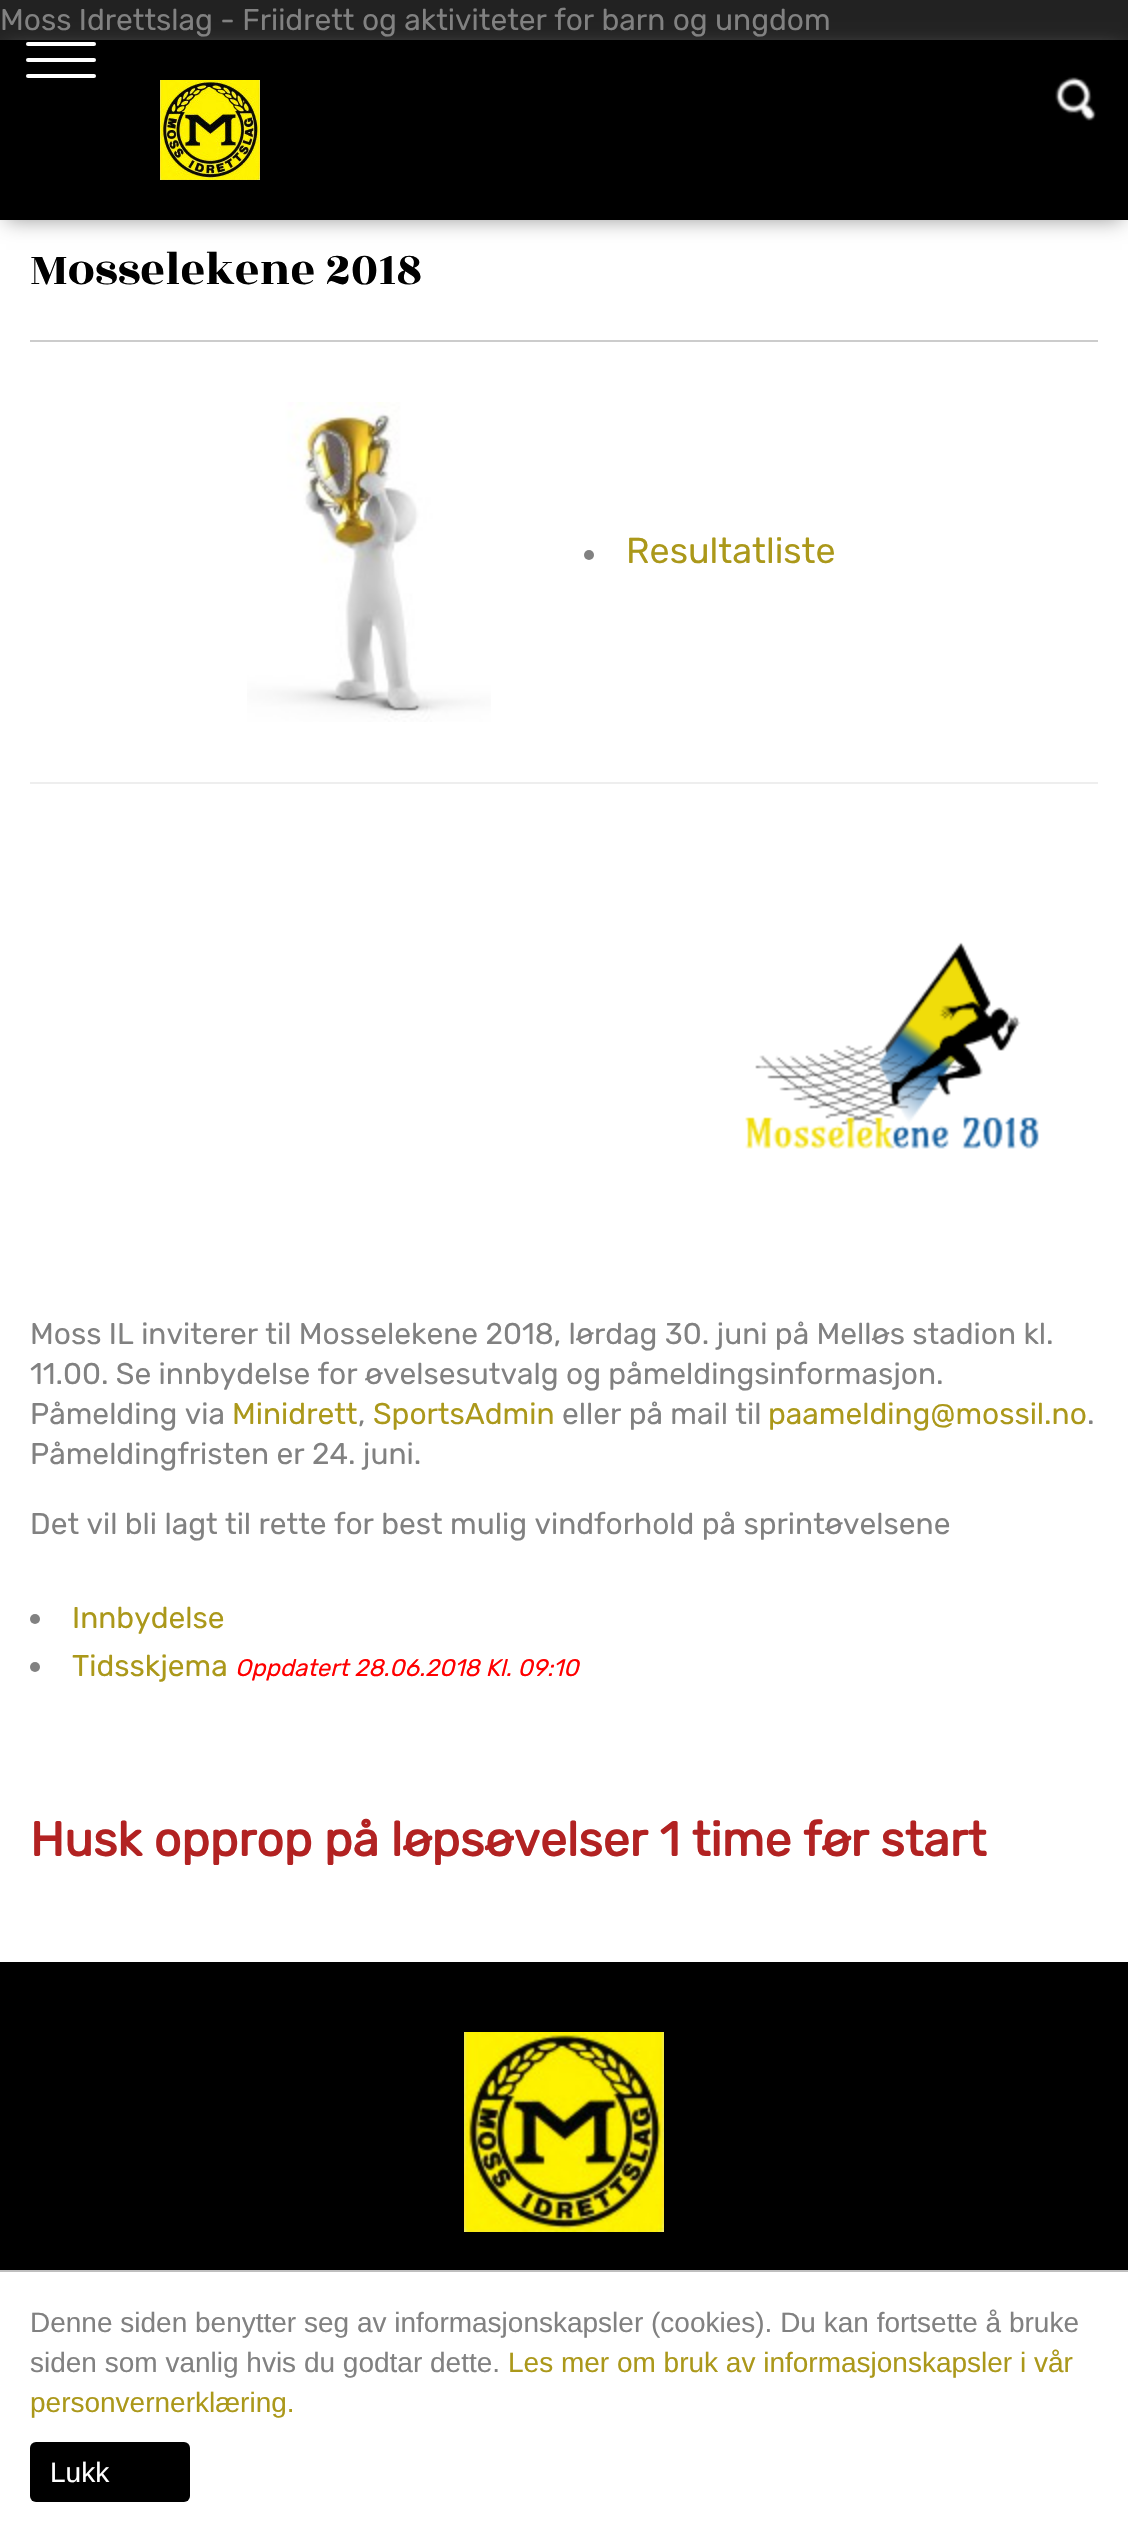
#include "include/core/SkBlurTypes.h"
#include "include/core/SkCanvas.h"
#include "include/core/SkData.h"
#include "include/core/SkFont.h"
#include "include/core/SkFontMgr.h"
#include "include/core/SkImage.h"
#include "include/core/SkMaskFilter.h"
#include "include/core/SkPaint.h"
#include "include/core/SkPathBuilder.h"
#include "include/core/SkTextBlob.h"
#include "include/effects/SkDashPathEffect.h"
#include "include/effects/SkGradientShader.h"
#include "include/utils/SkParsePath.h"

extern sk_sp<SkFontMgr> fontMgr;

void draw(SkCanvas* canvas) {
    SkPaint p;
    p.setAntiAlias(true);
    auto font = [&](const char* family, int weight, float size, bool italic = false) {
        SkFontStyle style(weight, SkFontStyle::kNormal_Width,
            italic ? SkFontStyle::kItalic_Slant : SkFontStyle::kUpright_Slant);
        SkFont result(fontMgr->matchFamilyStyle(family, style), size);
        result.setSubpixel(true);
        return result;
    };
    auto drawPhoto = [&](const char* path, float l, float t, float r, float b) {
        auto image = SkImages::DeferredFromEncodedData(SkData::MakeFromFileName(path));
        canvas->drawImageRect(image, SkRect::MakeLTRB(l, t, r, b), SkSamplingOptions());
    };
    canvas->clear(0xFF222222);
    auto font1 = font("Rubik", 400, 30);
    p.setColor(0xFF818181);
    canvas->drawString("Moss Idrettslag - Friidrett og aktiviteter for barn og ungdom", 0, 30, font1, p);
    p.setColor(0xFFFFFFFF);
    canvas->drawRect(SkRect::MakeLTRB(0, 220, 1128, 1962), p);
    p.setColor(0xFF999999);
    p.setMaskFilter(SkMaskFilter::MakeBlur(kNormal_SkBlurStyle, 10));
    canvas->drawRect(SkRect::MakeLTRB(6, 52, 1122, 220), p);
    p.setMaskFilter(nullptr);
    p.setColor(0xFF000000);
    canvas->drawRect(SkRect::MakeLTRB(0, 40, 1128, 220), p);
    drawPhoto("media/1.png", 160, 80, 260, 180);
    drawPhoto("media/2.png", 1055, 77, 1096, 121);
    p.setColor(0xFFFFFFFF);
    canvas->drawRoundRect(SkRect::MakeLTRB(26, 58, 96, 62), 2, 2, p);
    canvas->drawRoundRect(SkRect::MakeLTRB(26, 42, 96, 46), 2, 2, p);
    canvas->drawRoundRect(SkRect::MakeLTRB(26, 74, 96, 78), 2, 2, p);
    p.setColor(0xFFCCCCCC);
    canvas->drawRect(SkRect::MakeLTRB(30, 340, 1098, 342), p);
    auto font2 = font("Rozha One", 400, 48);
    p.setColor(0xFF000000);
    canvas->drawString("Mosselekene 2018", 30, 284, font2, p);
    drawPhoto("media/3.png", 247, 402, 491, 722);
    p.setColor(0xFF818181);
    canvas->drawCircle(589, 555, 5, p);
    auto font3 = font("Rubik", 400, 36);
    p.setColor(0xFFAB981A);
    canvas->drawString("Resultatliste", 626, 563, font3, p);
    p.setColor(0xFFEEEEEE);
    canvas->drawRect(SkRect::MakeLTRB(30, 782, 1098, 784), p);
    drawPhoto("media/4.png", 745, 942, 1039, 1149);
    p.setColor(0xFF818181);
    {
        const struct { const char* s; float x, y; } items[] = {
            {"Moss IL inviterer til Mosselekene 2018, lørdag 30. juni på Melløs stadion kl.", 30, 1344},
            {"11.00. Se innbydelse for øvelsesutvalg og påmeldingsinformasjon.", 30, 1384},
            {"Påmelding via", 30, 1424},
        };
        for (auto [s, x, y] : items) {
            canvas->drawString(s, x, y, font1, p);
        }
    }
    p.setColor(0xFFAB981A);
    canvas->drawString("Minidrett", 232, 1424, font1, p);
    p.setColor(0xFF818181);
    canvas->drawString(",", 358, 1424, font1, p);
    p.setColor(0xFFAB981A);
    canvas->drawString("SportsAdmin", 373, 1424, font1, p);
    p.setColor(0xFF818181);
    canvas->drawString("eller på mail til", 562, 1424, font1, p);
    p.setColor(0xFFAB981A);
    canvas->drawString("paamelding@mossil.no", 768, 1424, font1, p);
    p.setColor(0xFF818181);
    {
        const struct { const char* s; float x, y; } items[] = {
            {".", 1087, 1424},
            {"Påmeldingfristen er 24. juni.", 30, 1464},
            {"Det vil bli lagt til rette for best mulig vindforhold på sprintøvelsene", 30, 1534},
        };
        for (auto [s, x, y] : items) {
            canvas->drawString(s, x, y, font1, p);
        }
    }
    canvas->drawCircle(35, 1619, 5, p);
    p.setColor(0xFFAB981A);
    canvas->drawString("Innbydelse", 72, 1628, font1, p);
    p.setColor(0xFF818181);
    canvas->drawCircle(35, 1667, 5, p);
    p.setColor(0xFFAB981A);
    canvas->drawString("Tidsskjema", 72, 1676, font1, p);
    auto font4 = font("Rubik", 400, 24, true);
    p.setColor(0xFFFF0000);
    canvas->drawString("Oppdatert 28.06.2018 Kl. 09:10", 235, 1676, font4, p);
    auto font5 = font("Rubik", 700, 48);
    p.setColor(0xFFB22222);
    canvas->drawString("Husk opprop på løpsøvelser 1 time før start", 30, 1856, font5, p);
    p.setColor(0xFF000000);
    canvas->drawRect(SkRect::MakeLTRB(0, 1962, 1128, 2270), p);
    drawPhoto("media/5.png", 464, 2032, 664, 2232);
    p.setColor(0xFFFFFFFF);
    canvas->drawRect(SkRect::MakeLTRB(0, 2272, 1128, 2531), p);
    p.setColor(0xFFBFBFBF);
    canvas->drawRect(SkRect::MakeLTRB(0, 2270, 1128, 2272), p);
    auto font6 = font("Liberation Sans", 400, 28);
    p.setColor(0xFF818181);
    canvas->drawString("Denne siden benytter seg av informasjonskapsler (cookies). Du kan fortsette å bruke", 30, 2332, font6, p);
    canvas->drawString("siden som vanlig hvis du godtar dette.", 30, 2372, font6, p);
    p.setColor(0xFFAB981A);
    canvas->drawString("Les mer om bruk av informasjonskapsler i vår", 508, 2372, font6, p);
    canvas->drawString("personvernerklæring.", 30, 2412, font6, p);
    p.setColor(0xFF000000);
    canvas->drawRoundRect(SkRect::MakeLTRB(30, 2442, 190, 2502), 6, 6, p);
    p.setColor(0xFFFFFFFF);
    canvas->drawString("Lukk", 50, 2482, font6, p);
}
